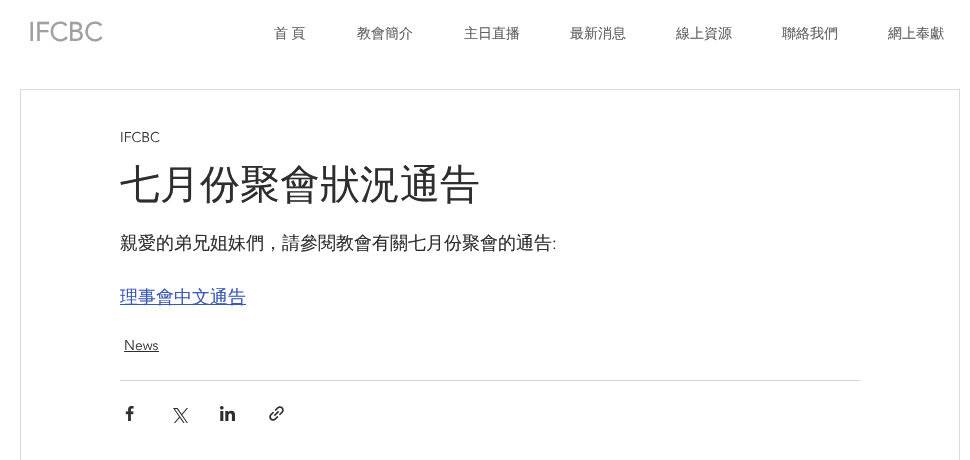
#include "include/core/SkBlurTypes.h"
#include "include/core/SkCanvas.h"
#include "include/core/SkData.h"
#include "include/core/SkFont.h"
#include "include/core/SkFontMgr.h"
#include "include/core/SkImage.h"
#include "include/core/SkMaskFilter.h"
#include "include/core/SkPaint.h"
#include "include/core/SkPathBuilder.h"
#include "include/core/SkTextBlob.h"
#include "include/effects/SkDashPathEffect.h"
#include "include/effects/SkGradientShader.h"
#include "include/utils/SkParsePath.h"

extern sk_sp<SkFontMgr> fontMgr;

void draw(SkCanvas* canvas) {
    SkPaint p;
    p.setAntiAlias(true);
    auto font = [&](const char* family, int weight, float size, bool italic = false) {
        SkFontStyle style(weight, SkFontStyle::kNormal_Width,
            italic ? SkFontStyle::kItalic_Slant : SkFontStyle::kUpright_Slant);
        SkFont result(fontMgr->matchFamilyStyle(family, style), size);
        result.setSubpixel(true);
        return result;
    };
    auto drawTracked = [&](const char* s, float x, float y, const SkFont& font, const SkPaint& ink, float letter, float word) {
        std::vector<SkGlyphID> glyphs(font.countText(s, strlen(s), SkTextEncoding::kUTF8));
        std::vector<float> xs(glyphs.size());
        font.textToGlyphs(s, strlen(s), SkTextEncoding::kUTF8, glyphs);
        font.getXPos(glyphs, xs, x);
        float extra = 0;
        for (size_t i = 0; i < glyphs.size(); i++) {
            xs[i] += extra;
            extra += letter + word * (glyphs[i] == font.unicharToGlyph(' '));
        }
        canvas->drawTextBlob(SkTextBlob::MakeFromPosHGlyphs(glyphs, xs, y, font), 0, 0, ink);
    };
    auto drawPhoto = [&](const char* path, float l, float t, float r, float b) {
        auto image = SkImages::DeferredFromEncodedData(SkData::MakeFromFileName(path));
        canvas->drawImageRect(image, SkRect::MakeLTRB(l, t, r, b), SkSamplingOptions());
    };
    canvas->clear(0xFFFFFFFF);
    auto font1 = font("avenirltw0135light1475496", 700, 26);
    p.setColor(0xFFA0A09F);
    canvas->drawString("IFCBC", 28, 41, font1, p);
    auto font2 = font("WenQuanYi Zen Hei", 500, 14);
    p.setColor(0xFF605E5E);
    drawTracked("首 頁", 274, 38, font2, p, 0, -1);
    {
        const struct { const char* s; float x, y; } items[] = {
            {"教會簡介", 357, 38},
            {"主日直播", 464, 38},
            {"最新消息", 570, 38},
            {"線上資源", 676, 38},
            {"聯絡我們", 782, 38},
            {"網上奉獻", 888, 38},
        };
        for (auto [s, x, y] : items) {
            canvas->drawString(s, x, y, font2, p);
        }
    }
    p.setStyle(SkPaint::kStroke_Style);
    p.setStrokeWidth(1);
    p.setColor(0xFFD9D9D9);
    canvas->drawRect(SkRect::MakeLTRB(20.5f, 89.5f, 959.5f, 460.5f), p);
    auto font3 = font("avenirltw0135light1475496", 300, 14);
    p.setStyle(SkPaint::kFill_Style);
    p.setColor(0xFF2F2E2E);
    canvas->drawString("IFCBC", 120, 142, font3, p);
    auto font4 = font("WenQuanYi Zen Hei", 500, 40);
    canvas->drawString("七月份聚會狀況通告", 120, 198, font4, p);
    auto font5 = font("WenQuanYi Zen Hei", 500, 18);
    canvas->drawString("親愛的弟兄姐妹們，請參閱教會有關七月份聚會的通告", 120, 249, font5, p);
    auto font6 = font("avenirltw0135light1475496", 300, 18);
    canvas->drawString(":", 552, 249, font6, p);
    p.setColor(0xFF3B58B8);
    canvas->drawRect(SkRect::MakeLTRB(120, 304, 246, 305), p);
    canvas->drawString("理事會中文通告", 120, 303, font5, p);
    p.setColor(0xFF2F2E2E);
    canvas->drawString("News", 124, 350, font3, p);
    canvas->drawRect(SkRect::MakeLTRB(124, 351, 159, 352), p);
    p.setColor(0xFFD5D5D5);
    canvas->drawRect(SkRect::MakeLTRB(120, 380, 860, 381), p);
    drawPhoto("media/1.png", 125, 406, 134, 421);
    drawPhoto("media/2.png", 173, 408, 188, 423);
    drawPhoto("media/3.png", 220, 406, 235, 421);
    drawPhoto("media/4.png", 269, 406, 284, 421);
}
